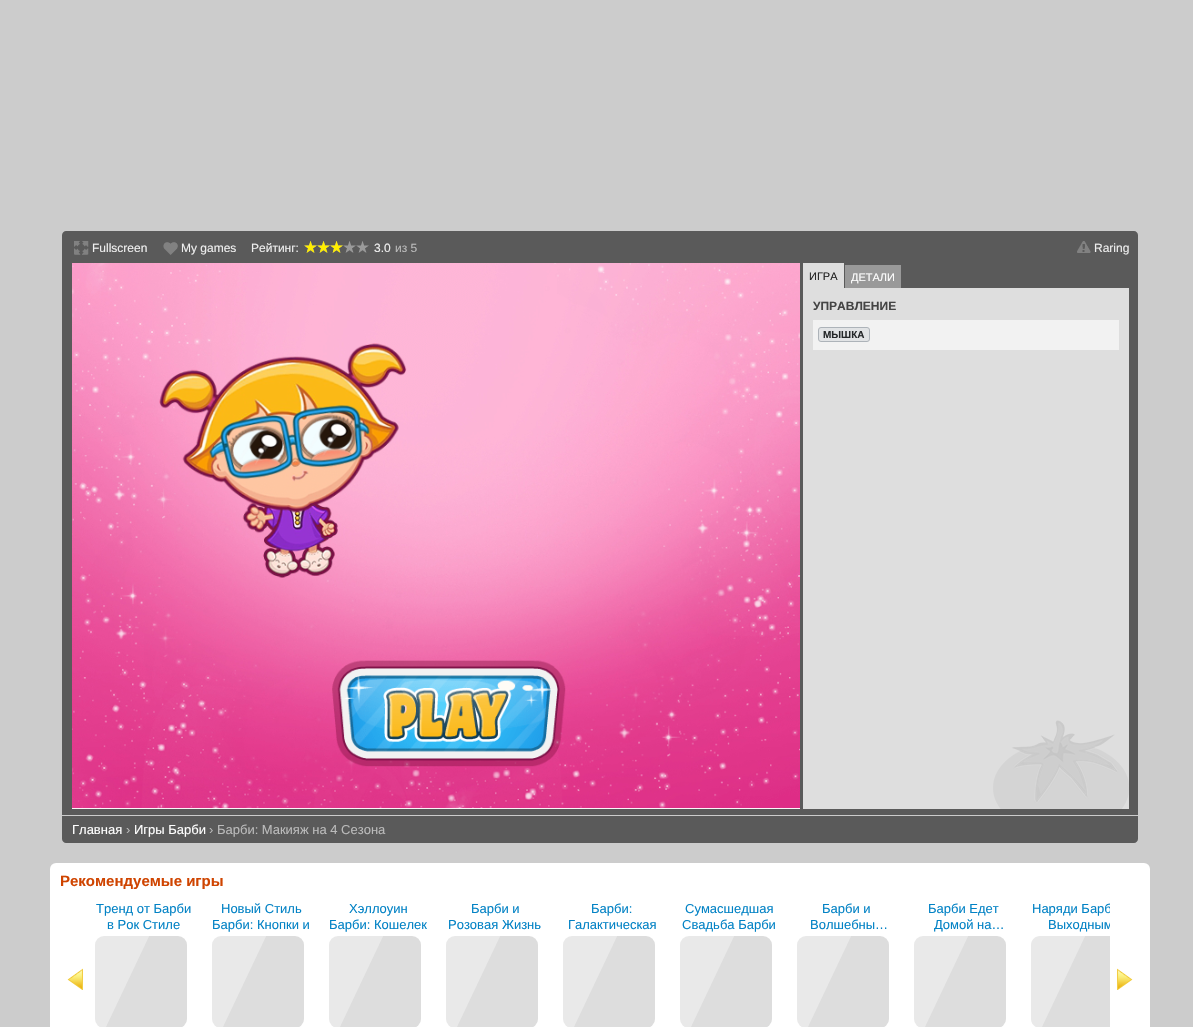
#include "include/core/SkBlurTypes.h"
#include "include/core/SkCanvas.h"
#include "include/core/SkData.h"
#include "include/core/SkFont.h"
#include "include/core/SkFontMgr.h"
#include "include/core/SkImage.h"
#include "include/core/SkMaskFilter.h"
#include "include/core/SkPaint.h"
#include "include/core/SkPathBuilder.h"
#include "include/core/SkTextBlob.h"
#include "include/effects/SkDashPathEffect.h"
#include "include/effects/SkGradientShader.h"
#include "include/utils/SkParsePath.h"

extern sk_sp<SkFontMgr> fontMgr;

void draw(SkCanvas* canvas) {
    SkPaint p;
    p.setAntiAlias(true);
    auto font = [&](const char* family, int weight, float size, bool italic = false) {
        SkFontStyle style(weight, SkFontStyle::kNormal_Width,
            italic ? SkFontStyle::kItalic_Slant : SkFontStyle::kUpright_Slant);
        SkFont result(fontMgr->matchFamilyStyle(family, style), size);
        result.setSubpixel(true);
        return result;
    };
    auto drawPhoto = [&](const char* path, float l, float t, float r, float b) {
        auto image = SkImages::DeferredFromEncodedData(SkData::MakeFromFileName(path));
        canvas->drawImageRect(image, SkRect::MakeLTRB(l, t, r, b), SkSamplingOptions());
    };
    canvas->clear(0xFFCCCCCC);
    p.setColor(0xFF5A5A5A);
    canvas->drawPath(SkPathBuilder().moveTo(66, 231).lineTo(1134, 231).cubicTo(1136, 231, 1138, 233, 1138, 235).lineTo(1138, 815).lineTo(62, 815).lineTo(62, 235).cubicTo(62, 233, 64, 231, 66, 231).close().detach(), p);
    drawPhoto("media/1.png", 74, 241, 89, 255);
    auto font1 = font("Liberation Sans", 400, 12);
    p.setColor(0xFFEEEEEE);
    canvas->drawString("Fullscreen", 92, 252, font1, p);
    drawPhoto("media/2.png", 163, 242, 178, 255);
    canvas->drawString("My games", 181, 252, font1, p);
    canvas->drawString("Рейтинг:", 251, 252, font1, p);
    drawPhoto("media/3.png", 304, 241, 369, 253);
    drawPhoto("media/4.png", 304, 241, 343, 253);
    canvas->drawString("3.0", 374, 252, font1, p);
    p.setColor(0xFFBBBBBB);
    canvas->drawString("из 5", 395, 252, font1, p);
    drawPhoto("media/5.png", 1077, 241, 1091, 253);
    p.setColor(0xFFEEEEEE);
    canvas->drawString("Raring", 1094, 252, font1, p);
    drawPhoto("media/6.png", 72, 263, 800, 809);
    p.setColor(0xFFDEDEDE);
    canvas->drawRect(SkRect::MakeLTRB(803, 288, 1129, 809), p);
    canvas->drawRect(SkRect::MakeLTRB(803, 263, 844, 288), p);
    auto font2 = font("Liberation Sans", 400, 11);
    p.setColor(0xFF222222);
    canvas->drawString("ИГРА", 809, 280, font2, p);
    p.setColor(0xFF999999);
    canvas->drawRect(SkRect::MakeLTRB(845, 265, 901, 288), p);
    p.setColor(0xFFFFFFFF);
    canvas->drawString("ДЕТАЛИ", 851, 281, font2, p);
    drawPhoto("media/7.png", 993, 720, 1129, 809);
    auto font3 = font("Liberation Sans", 700, 12);
    p.setColor(0xFF444444);
    canvas->drawString("УПРАВЛЕНИЕ", 813, 310, font3, p);
    p.setColor(0xFFF2F2F2);
    canvas->drawRect(SkRect::MakeLTRB(813, 320, 1119, 350), p);
    p.setColor(0xFFE1E3E5);
    canvas->drawRoundRect(SkRect::MakeLTRB(818.5f, 327.5f, 869.5f, 341.5f), 2.5f, 2.5f, p);
    p.setStyle(SkPaint::kStroke_Style);
    p.setStrokeWidth(1);
    p.setColor(0xFFADB3B9);
    canvas->drawRoundRect(SkRect::MakeLTRB(818.5f, 327.5f, 869.5f, 341.5f), 2.5f, 2.5f, p);
    auto font4 = font("Liberation Sans", 700, 10);
    p.setStyle(SkPaint::kFill_Style);
    p.setColor(0xFF242729);
    canvas->drawString("МЫШКА", 823, 338, font4, p);
    p.setColor(0xFF5A5A5A);
    canvas->drawPath(SkPathBuilder().moveTo(62, 815).lineTo(1138, 815).lineTo(1138, 839).cubicTo(1138, 841, 1136, 843, 1134, 843).lineTo(66, 843).cubicTo(64, 843, 62, 841, 62, 839).close().detach(), p);
    p.setColor(0xFFCCCCCC);
    canvas->drawRect(SkRect::MakeLTRB(62, 815, 1138, 816), p);
    auto font5 = font("Liberation Sans", 400, 13);
    p.setColor(0xFFFFFFFF);
    canvas->drawString("Главная", 72, 834, font5, p);
    p.setColor(0xFFBBBBBB);
    canvas->drawString("›", 126, 834, font5, p);
    p.setColor(0xFFFFFFFF);
    canvas->drawString("Игры Барби", 134, 834, font5, p);
    p.setColor(0xFFBBBBBB);
    canvas->drawString("› Барби: Макияж на 4 Сезона", 209, 834, font5, p);
    p.setColor(0xFFFFFFFF);
    canvas->drawRoundRect(SkRect::MakeLTRB(50, 863, 1150, 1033), 6, 6, p);
    auto font6 = font("Liberation Sans", 700, 15);
    p.setColor(0xFFCF4400);
    canvas->drawString("Рекомендуемые игры", 60, 886, font6, p);
    p.setColor(0xFF0282C5);
    canvas->drawString("Тренд от Барби", 96, 913, font5, p);
    canvas->drawString("в Рок Стиле", 107, 929, font5, p);
    p.setColor(0xFFDDDDDD);
    canvas->drawRoundRect(SkRect::MakeLTRB(95, 936, 187, 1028), 9, 9, p);
    drawPhoto("media/8.png", 95, 936, 149, 1027);
    p.setColor(0xFF0282C5);
    canvas->drawString("Новый Стиль", 221, 913, font5, p);
    canvas->drawString("Барби: Кнопки и", 212, 929, font5, p);
    p.setColor(0xFFDDDDDD);
    canvas->drawRoundRect(SkRect::MakeLTRB(212, 936, 304, 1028), 9, 9, p);
    drawPhoto("media/8.png", 212, 936, 266, 1027);
    p.setColor(0xFF0282C5);
    canvas->drawString("Хэллоуин", 349, 913, font5, p);
    canvas->drawString("Барби: Кошелек", 329, 929, font5, p);
    p.setColor(0xFFDDDDDD);
    canvas->drawRoundRect(SkRect::MakeLTRB(329, 936, 421, 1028), 9, 9, p);
    drawPhoto("media/8.png", 329, 936, 383, 1027);
    p.setColor(0xFF0282C5);
    canvas->drawString("Барби и", 471, 913, font5, p);
    canvas->drawString("Розовая Жизнь", 448, 929, font5, p);
    p.setColor(0xFFDDDDDD);
    canvas->drawRoundRect(SkRect::MakeLTRB(446, 936, 538, 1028), 9, 9, p);
    drawPhoto("media/8.png", 446, 936, 500, 1027);
    p.setColor(0xFF0282C5);
    canvas->drawString("Барби:", 591, 913, font5, p);
    canvas->drawString("Галактическая", 568, 929, font5, p);
    p.setColor(0xFFDDDDDD);
    canvas->drawRoundRect(SkRect::MakeLTRB(563, 936, 655, 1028), 9, 9, p);
    drawPhoto("media/8.png", 563, 936, 617, 1027);
    p.setColor(0xFF0282C5);
    canvas->drawString("Сумасшедшая", 685, 913, font5, p);
    canvas->drawString("Свадьба Барби", 682, 929, font5, p);
    p.setColor(0xFFDDDDDD);
    canvas->drawRoundRect(SkRect::MakeLTRB(680, 936, 772, 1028), 9, 9, p);
    drawPhoto("media/8.png", 680, 936, 734, 1027);
    p.setColor(0xFF0282C5);
    canvas->drawString("Барби и", 822, 913, font5, p);
    canvas->drawString("Волшебны…", 810, 929, font5, p);
    p.setColor(0xFFDDDDDD);
    canvas->drawRoundRect(SkRect::MakeLTRB(797, 936, 889, 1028), 9, 9, p);
    drawPhoto("media/8.png", 797, 936, 851, 1027);
    p.setColor(0xFF0282C5);
    canvas->drawString("Барби Едет", 928, 913, font5, p);
    canvas->drawString("Домой на…", 934, 929, font5, p);
    p.setColor(0xFFDDDDDD);
    canvas->drawRoundRect(SkRect::MakeLTRB(914, 936, 1006, 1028), 9, 9, p);
    drawPhoto("media/8.png", 914, 936, 968, 1027);
    canvas->save();
    canvas->clipRect(SkRect::MakeLTRB(1031, 901, 1110, 933));
    p.setColor(0xFF0282C5);
    canvas->drawString("Наряди Барб", 1032, 913, font5, p);
    canvas->drawString("Выходным", 1048, 929, font5, p);
    canvas->restore();
    p.setColor(0xFFDDDDDD);
    canvas->drawPath(SkPathBuilder().moveTo(1040, 936).lineTo(1110, 936).lineTo(1110, 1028).lineTo(1040, 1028).cubicTo(1035, 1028, 1031, 1024, 1031, 1019).lineTo(1031, 945).cubicTo(1031, 940, 1035, 936, 1040, 936).close().detach(), p);
    drawPhoto("media/8.png", 1031, 936, 1085, 1027);
    drawPhoto("media/9.png", 67, 968, 83, 990);
    drawPhoto("media/10.png", 1117, 968, 1133, 990);
}
